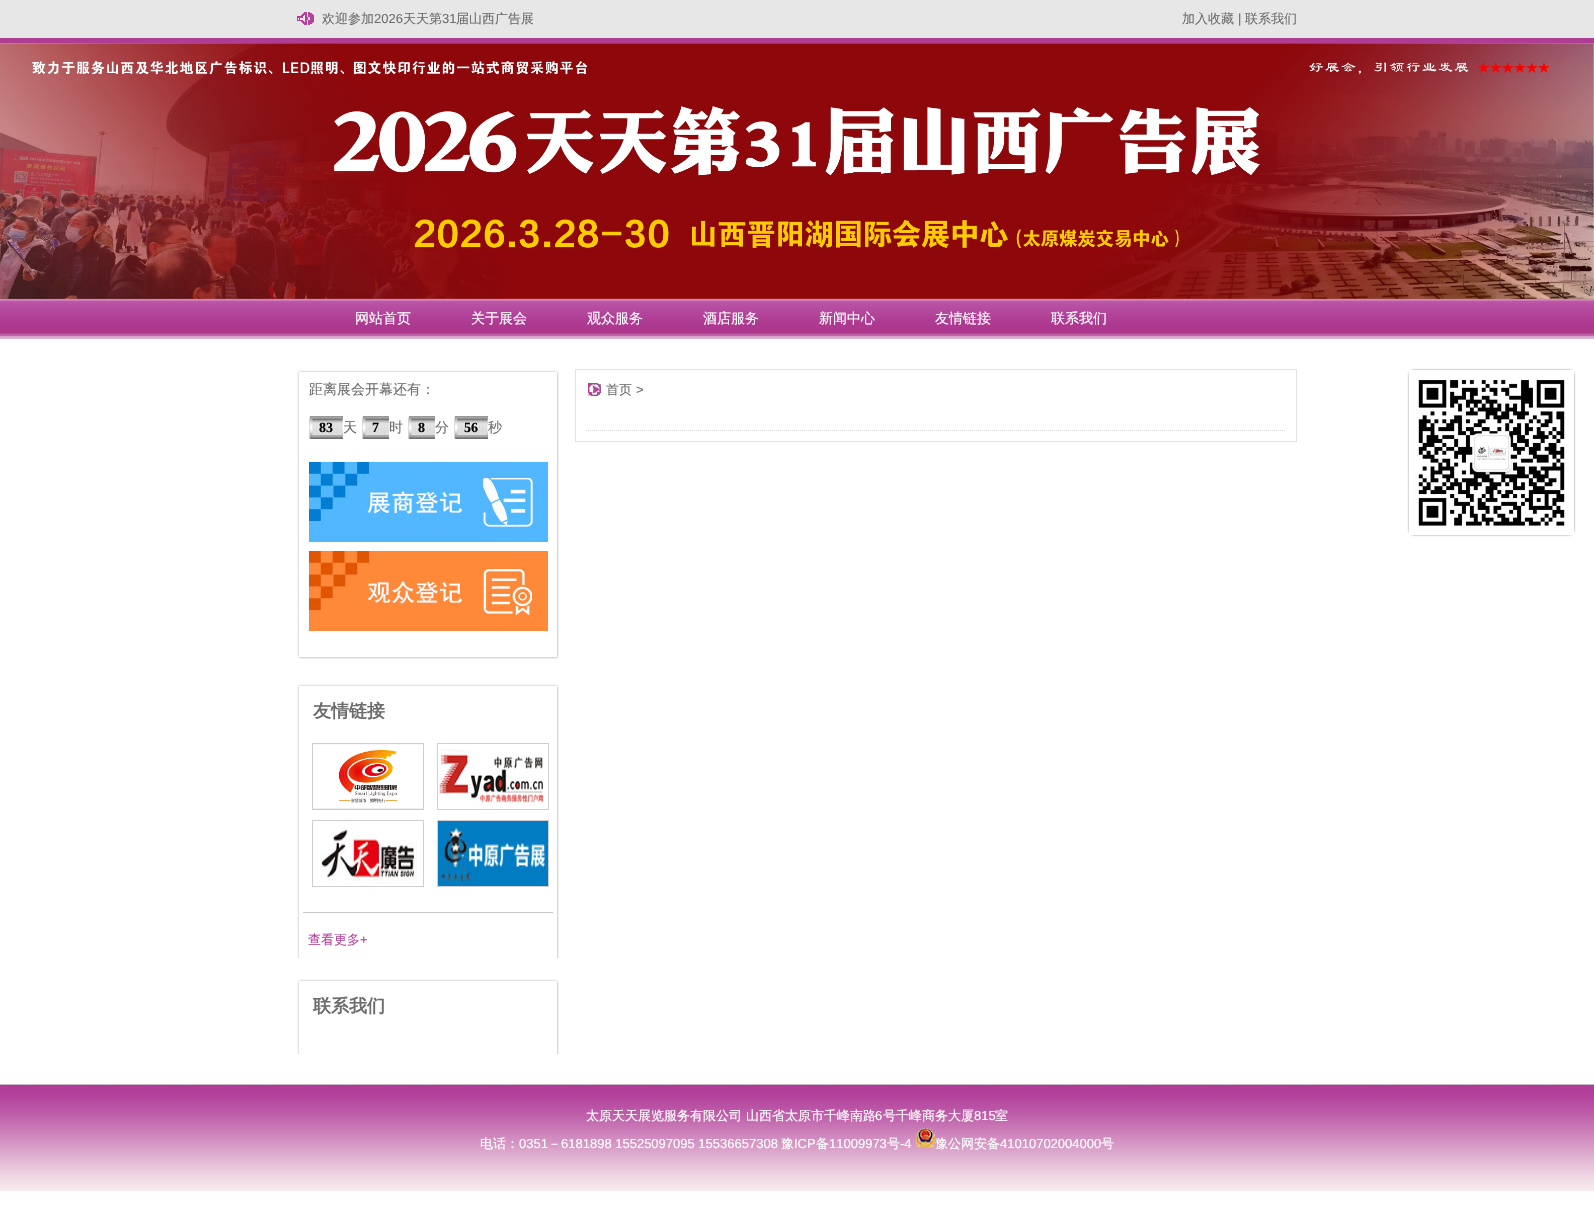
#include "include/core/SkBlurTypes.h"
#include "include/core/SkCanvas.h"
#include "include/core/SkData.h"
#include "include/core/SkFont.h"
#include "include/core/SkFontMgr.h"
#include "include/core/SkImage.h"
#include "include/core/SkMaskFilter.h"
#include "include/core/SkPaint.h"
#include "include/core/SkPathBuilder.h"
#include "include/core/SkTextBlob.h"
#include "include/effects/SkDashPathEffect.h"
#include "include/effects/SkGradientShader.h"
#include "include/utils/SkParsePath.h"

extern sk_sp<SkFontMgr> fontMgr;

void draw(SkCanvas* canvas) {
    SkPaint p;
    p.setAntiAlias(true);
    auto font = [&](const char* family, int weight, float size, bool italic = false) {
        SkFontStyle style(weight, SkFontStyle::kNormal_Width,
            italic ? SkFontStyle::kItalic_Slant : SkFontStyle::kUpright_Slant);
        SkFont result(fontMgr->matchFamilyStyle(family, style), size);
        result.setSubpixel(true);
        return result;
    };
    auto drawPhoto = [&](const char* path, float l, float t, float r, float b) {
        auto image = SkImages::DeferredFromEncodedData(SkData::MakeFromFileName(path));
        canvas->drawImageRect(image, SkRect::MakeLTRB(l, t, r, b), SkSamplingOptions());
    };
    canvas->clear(0xFFFFFFFF);
    p.setColor(0xFFE7E7E7);
    canvas->drawRect(SkRect::MakeLTRB(0, 0, 1594, 38), p);
    p.setColor(0xFFAF3D94);
    canvas->drawRect(SkRect::MakeLTRB(0, 38, 1594, 43), p);
    drawPhoto("media/1.png", 297, 12, 314, 25);
    auto font1 = font("WenQuanYi Zen Hei", 500, 13);
    p.setColor(0xFF6C6C6C);
    canvas->drawString("欢迎参加", 322, 23, font1, p);
    auto font2 = font("Liberation Sans", 400, 13);
    canvas->drawString("2026", 374, 23, font2, p);
    canvas->drawString("天天第", 403, 23, font1, p);
    canvas->drawString("31", 442, 23, font2, p);
    canvas->drawString("届山西广告展", 456, 23, font1, p);
    canvas->drawString("加入收藏", 1182, 23, font1, p);
    canvas->drawString("|", 1238, 23, font2, p);
    canvas->drawString("联系我们", 1245, 23, font1, p);
    drawPhoto("media/2.png", 0, 43, 1594, 299);
    drawPhoto("media/3.png", 0, 299, 1594, 339);
    auto font3 = font("WenQuanYi Zen Hei", 500, 14);
    p.setColor(0xFFFFFFFF);
    {
        const struct { const char* s; float x, y; } items[] = {
            {"网站首页", 355, 323},
            {"关于展会", 471, 323},
            {"观众服务", 587, 323},
            {"酒店服务", 703, 323},
            {"新闻中心", 819, 323},
            {"友情链接", 935, 323},
            {"联系我们", 1051, 323},
        };
        for (auto [s, x, y] : items) {
            canvas->drawString(s, x, y, font3, p);
        }
    }
    drawPhoto("media/4.png", 297, 370, 559, 659);
    p.setColor(0xFF6C6C6C);
    canvas->drawString("距离展会开幕还有：", 309, 394, font3, p);
    drawPhoto("media/5.png", 309, 416, 343, 439);
    canvas->drawString("天", 343, 432, font3, p);
    auto font4 = font("Liberation Serif", 700, 14);
    p.setColor(0xFF000000);
    canvas->drawString("83", 319, 432, font4, p);
    drawPhoto("media/6.png", 362, 416, 389, 439);
    p.setColor(0xFF6C6C6C);
    canvas->drawString("时", 389, 432, font3, p);
    p.setColor(0xFF000000);
    canvas->drawString("7", 372, 432, font4, p);
    drawPhoto("media/6.png", 408, 416, 435, 439);
    p.setColor(0xFF6C6C6C);
    canvas->drawString("分", 435, 432, font3, p);
    p.setColor(0xFF000000);
    canvas->drawString("8", 418, 432, font4, p);
    drawPhoto("media/5.png", 454, 416, 488, 439);
    p.setColor(0xFF6C6C6C);
    canvas->drawString("秒", 488, 432, font3, p);
    p.setColor(0xFF000000);
    canvas->drawString("56", 464, 432, font4, p);
    drawPhoto("media/7.png", 309, 462, 548, 542);
    drawPhoto("media/8.png", 309, 551, 548, 631);
    drawPhoto("media/9.png", 297, 684, 559, 958);
    auto font5 = font("WenQuanYi Zen Hei", 700, 18);
    p.setColor(0xFF6C6C6C);
    canvas->drawString("友情链接", 313, 717, font5, p);
    p.setColor(0xFFCACACA);
    canvas->drawRect(SkRect::MakeLTRB(303, 912, 553, 913), p);
    p.setStyle(SkPaint::kStroke_Style);
    p.setStrokeWidth(1);
    p.setColor(0xFFCFCFCF);
    canvas->drawRect(SkRect::MakeLTRB(312.5f, 743.5f, 423.5f, 809.5f), p);
    drawPhoto("media/10.png", 313, 744, 423, 809);
    canvas->drawRect(SkRect::MakeLTRB(437.5f, 743.5f, 548.5f, 809.5f), p);
    drawPhoto("media/11.png", 438, 749, 544, 804);
    canvas->drawRect(SkRect::MakeLTRB(312.5f, 820.5f, 423.5f, 886.5f), p);
    drawPhoto("media/12.png", 320, 822, 417, 884);
    canvas->drawRect(SkRect::MakeLTRB(437.5f, 820.5f, 548.5f, 886.5f), p);
    drawPhoto("media/13.png", 438, 821, 548, 886);
    p.setStyle(SkPaint::kFill_Style);
    p.setColor(0xFFB34399);
    canvas->drawString("查看更多", 308, 944, font1, p);
    canvas->drawString("+", 360, 944, font2, p);
    drawPhoto("media/14.png", 297, 979, 559, 1054);
    p.setColor(0xFF6C6C6C);
    canvas->drawString("联系我们", 313, 1012, font5, p);
    p.setStyle(SkPaint::kStroke_Style);
    p.setColor(0xFFE3E3E3);
    canvas->drawRect(SkRect::MakeLTRB(575.5f, 369.5f, 1296.5f, 441.5f), p);
    drawPhoto("media/15.png", 588, 383, 601, 396);
    p.setStyle(SkPaint::kFill_Style);
    p.setColor(0xFF6C6C6C);
    canvas->drawString("首页", 606, 394, font1, p);
    canvas->drawString(">", 636, 394, font2, p);
    p.setStyle(SkPaint::kStroke_Style);
    p.setColor(0xFFD8D7D7);
    p.setPathEffect(SkDashPathEffect::Make({{1, 1}}, 0));
    canvas->drawPath(SkPathBuilder().moveTo(586, 430.5f).lineTo(1286, 430.5f).detach(), p);
    p.setPathEffect(nullptr);
    drawPhoto("media/16.png", 0, 1084, 1594, 1191);
    p.setStyle(SkPaint::kFill_Style);
    p.setColor(0xFF6E6E6E);
    p.setMaskFilter(SkMaskFilter::MakeBlur(kNormal_SkBlurStyle, 1));
    canvas->drawRoundRect(SkRect::MakeLTRB(1409, 370, 1574, 535), 5, 5, p);
    p.setMaskFilter(nullptr);
    drawPhoto("media/17.png", 1409, 370, 1574, 535);
    p.setColor(0xFFFFFFFF);
    canvas->drawString("太原天天展览服务有限公司 山西省太原市千峰南路", 586, 1120, font1, p);
    canvas->drawString("6", 875, 1120, font2, p);
    canvas->drawString("号千峰商务大厦", 883, 1120, font1, p);
    canvas->drawString("815", 974, 1120, font2, p);
    canvas->drawString("室", 995, 1120, font1, p);
    canvas->drawString("电话：", 480, 1148, font1, p);
    canvas->drawString("0351", 519, 1148, font2, p);
    canvas->drawString("－", 548, 1148, font1, p);
    canvas->drawString("6181898 15525097095 15536657308", 561, 1148, font2, p);
    canvas->drawString("豫", 781, 1148, font1, p);
    canvas->drawString("ICP", 794, 1148, font2, p);
    canvas->drawString("备", 816, 1148, font1, p);
    canvas->drawString("11009973", 829, 1148, font2, p);
    canvas->drawString("号", 887, 1148, font1, p);
    canvas->drawString("-4", 900, 1148, font2, p);
    drawPhoto("media/18.png", 915, 1128, 935, 1148);
    canvas->drawString("豫公网安备", 935, 1148, font1, p);
    canvas->drawString("41010702004000", 1000, 1148, font2, p);
    canvas->drawString("号", 1101, 1148, font1, p);
}
